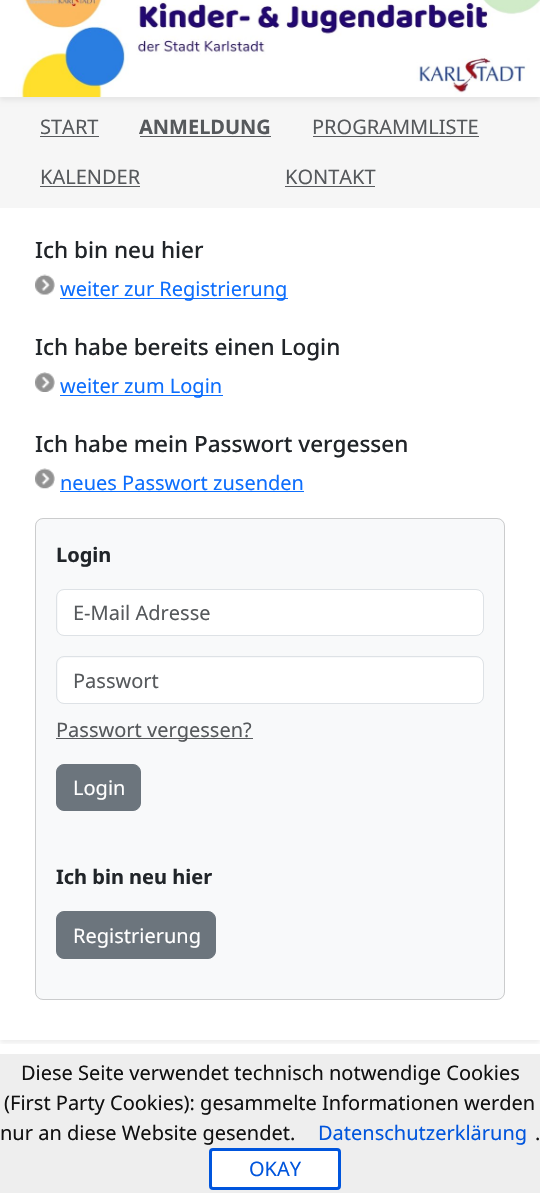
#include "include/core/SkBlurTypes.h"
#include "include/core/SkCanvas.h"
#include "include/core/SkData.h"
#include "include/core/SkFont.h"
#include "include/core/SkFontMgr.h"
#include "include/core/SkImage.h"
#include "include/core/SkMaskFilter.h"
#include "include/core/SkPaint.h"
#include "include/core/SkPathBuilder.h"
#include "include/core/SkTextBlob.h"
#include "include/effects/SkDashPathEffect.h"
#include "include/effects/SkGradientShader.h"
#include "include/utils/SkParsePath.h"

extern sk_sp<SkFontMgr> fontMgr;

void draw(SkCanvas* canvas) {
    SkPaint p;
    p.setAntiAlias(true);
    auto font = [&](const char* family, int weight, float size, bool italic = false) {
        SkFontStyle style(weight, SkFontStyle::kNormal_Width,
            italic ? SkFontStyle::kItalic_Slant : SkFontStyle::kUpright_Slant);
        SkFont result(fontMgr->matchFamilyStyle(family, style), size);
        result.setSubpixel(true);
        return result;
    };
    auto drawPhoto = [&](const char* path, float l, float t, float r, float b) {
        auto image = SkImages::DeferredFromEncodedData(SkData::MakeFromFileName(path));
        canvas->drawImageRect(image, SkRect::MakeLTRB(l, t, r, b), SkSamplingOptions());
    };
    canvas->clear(0xFFFFFFFF);
    p.setColor(0xFFF6F6F6);
    canvas->drawRect(SkRect::MakeLTRB(0, 97, 540, 208), p);
    p.setColor(0x12000000);
    p.setMaskFilter(SkMaskFilter::MakeBlur(kNormal_SkBlurStyle, 2.5f));
    canvas->drawRect(SkRect::MakeLTRB(0, -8, 540, 100), p);
    p.setMaskFilter(nullptr);
    drawPhoto("media/1.png", 0, 0, 540, 97);
    auto font1 = font("Noto Sans", 400, 20);
    p.setColor(0xFF56595C);
    canvas->drawString("START", 40, 134, font1, p);
    canvas->drawRect(SkRect::MakeLTRB(40, 136, 99, 137), p);
    auto font2 = font("Noto Sans", 700, 20);
    canvas->drawString("ANMELDUNG", 139, 134, font2, p);
    canvas->drawRect(SkRect::MakeLTRB(140, 136, 271, 137), p);
    canvas->drawString("PROGRAMMLISTE", 312, 134, font1, p);
    canvas->drawRect(SkRect::MakeLTRB(313, 136, 479, 137), p);
    canvas->drawString("KALENDER", 40, 184, font1, p);
    canvas->drawRect(SkRect::MakeLTRB(40, 186, 140, 187), p);
    canvas->drawString("KONTAKT", 285, 184, font1, p);
    canvas->drawRect(SkRect::MakeLTRB(285, 186, 375, 187), p);
    canvas->save();
    canvas->clipRect(SkRect::MakeLTRB(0, 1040, 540, 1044));
    p.setColor(0x12000000);
    p.setMaskFilter(SkMaskFilter::MakeBlur(kNormal_SkBlurStyle, 2.5f));
    canvas->drawRect(SkRect::MakeLTRB(0, 210, 540, 1043), p);
    p.setMaskFilter(nullptr);
    canvas->restore();
    auto font3 = font("Noto Sans", 500, 22.5f);
    p.setColor(0xFF212529);
    canvas->drawString("Ich bin neu hier", 35, 258, font3, p);
    drawPhoto("media/2.png", 35, 274, 55, 295);
    p.setColor(0xFF0D6EFD);
    canvas->drawRect(SkRect::MakeLTRB(60, 298, 288, 299), p);
    canvas->drawString("weiter zur Registrierung", 60, 296, font1, p);
    p.setColor(0xFF212529);
    canvas->drawString("Ich habe bereits einen Login", 35, 355, font3, p);
    drawPhoto("media/3.png", 35, 372, 55, 392);
    p.setColor(0xFF0D6EFD);
    canvas->drawRect(SkRect::MakeLTRB(60, 395, 223, 396), p);
    canvas->drawString("weiter zum Login", 60, 393, font1, p);
    p.setColor(0xFF212529);
    canvas->drawString("Ich habe mein Passwort vergessen", 35, 452, font3, p);
    drawPhoto("media/4.png", 35, 468, 55, 489);
    p.setColor(0xFF0D6EFD);
    canvas->drawString("neues Passwort zusenden", 60, 490, font1, p);
    canvas->drawRect(SkRect::MakeLTRB(60, 491, 304, 492), p);
    p.setColor(0xFFF8F9FA);
    canvas->drawRoundRect(SkRect::MakeLTRB(35, 518, 505, 1000), 8, 8, p);
    p.setStyle(SkPaint::kStroke_Style);
    p.setStrokeWidth(1);
    p.setColor(0x2E000000);
    canvas->drawRoundRect(SkRect::MakeLTRB(35.5f, 518.5f, 504.5f, 999.5f), 7.5f, 7.5f, p);
    p.setStyle(SkPaint::kFill_Style);
    p.setColor(0xFF212529);
    canvas->drawString("Login", 56, 562, font2, p);
    p.setColor(0xFFFFFFFF);
    canvas->drawRoundRect(SkRect::MakeLTRB(58, 590, 483, 635), 6, 6, p);
    p.setStyle(SkPaint::kStroke_Style);
    p.setColor(0xFFDEE2E6);
    canvas->drawRoundRect(SkRect::MakeLTRB(56.5f, 589.5f, 483.5f, 635.5f), 7.5f, 7.5f, p);
    p.setStyle(SkPaint::kFill_Style);
    p.setColor(0xFF56595C);
    canvas->drawString("E-Mail Adresse", 73, 620, font1, p);
    p.setColor(0xFFFFFFFF);
    canvas->drawRoundRect(SkRect::MakeLTRB(58, 658, 483, 703), 6, 6, p);
    p.setStyle(SkPaint::kStroke_Style);
    p.setColor(0xFFDEE2E6);
    canvas->drawRoundRect(SkRect::MakeLTRB(56.5f, 656.5f, 483.5f, 703.5f), 7.5f, 7.5f, p);
    p.setStyle(SkPaint::kFill_Style);
    p.setColor(0xFF56595C);
    canvas->drawString("Passwort", 73, 688, font1, p);
    p.setColor(0xFF575A5D);
    canvas->drawRect(SkRect::MakeLTRB(56, 738, 253, 739), p);
    p.setColor(0xFF56595C);
    canvas->drawString("Passwort vergessen?", 56, 737, font1, p);
    p.setColor(0xFF6C757D);
    canvas->drawRoundRect(SkRect::MakeLTRB(56.5f, 764.5f, 140.5f, 810.5f), 7.5f, 7.5f, p);
    p.setStyle(SkPaint::kStroke_Style);
    canvas->drawRoundRect(SkRect::MakeLTRB(56.5f, 764.5f, 140.5f, 810.5f), 7.5f, 7.5f, p);
    p.setStyle(SkPaint::kFill_Style);
    p.setColor(0xFFFFFFFF);
    canvas->drawString("Login", 73, 795, font1, p);
    p.setColor(0xFF212529);
    canvas->drawString("Ich bin neu hier", 56, 884, font2, p);
    p.setColor(0xFF6C757D);
    canvas->drawRoundRect(SkRect::MakeLTRB(56.5f, 911.5f, 215.5f, 958.5f), 7.5f, 7.5f, p);
    p.setStyle(SkPaint::kStroke_Style);
    canvas->drawRoundRect(SkRect::MakeLTRB(56.5f, 911.5f, 215.5f, 958.5f), 7.5f, 7.5f, p);
    p.setStyle(SkPaint::kFill_Style);
    p.setColor(0xFFFFFFFF);
    canvas->drawString("Registrierung", 73, 943, font1, p);
    p.setColor(0xFFEEEEEE);
    canvas->drawRect(SkRect::MakeLTRB(0, 1054, 540, 1193), p);
    p.setColor(0xFF111111);
    {
        const struct { const char* s; float x, y; } items[] = {
            {"Diese Seite verwendet technisch notwendige Cookies", 21, 1080},
            {"(First Party Cookies): gesammelte Informationen werden", 4, 1110},
            {"nur an diese Website gesendet.", 0, 1140},
        };
        for (auto [s, x, y] : items) {
            canvas->drawString(s, x, y, font1, p);
        }
    }
    p.setColor(0xFF0055DD);
    canvas->drawString("Datenschutzerklärung", 318, 1140, font1, p);
    p.setColor(0xFF111111);
    canvas->drawString(".", 535, 1140, font1, p);
    p.setColor(0xFFFFFFFF);
    canvas->drawRoundRect(SkRect::MakeLTRB(210.5f, 1149.5f, 339.5f, 1188.5f), 2.5f, 2.5f, p);
    p.setStyle(SkPaint::kStroke_Style);
    p.setStrokeWidth(3);
    p.setColor(0xFF0055DD);
    canvas->drawRoundRect(SkRect::MakeLTRB(210.5f, 1149.5f, 339.5f, 1188.5f), 2.5f, 2.5f, p);
    p.setStyle(SkPaint::kFill_Style);
    canvas->drawString("OKAY", 249, 1176, font1, p);
}
